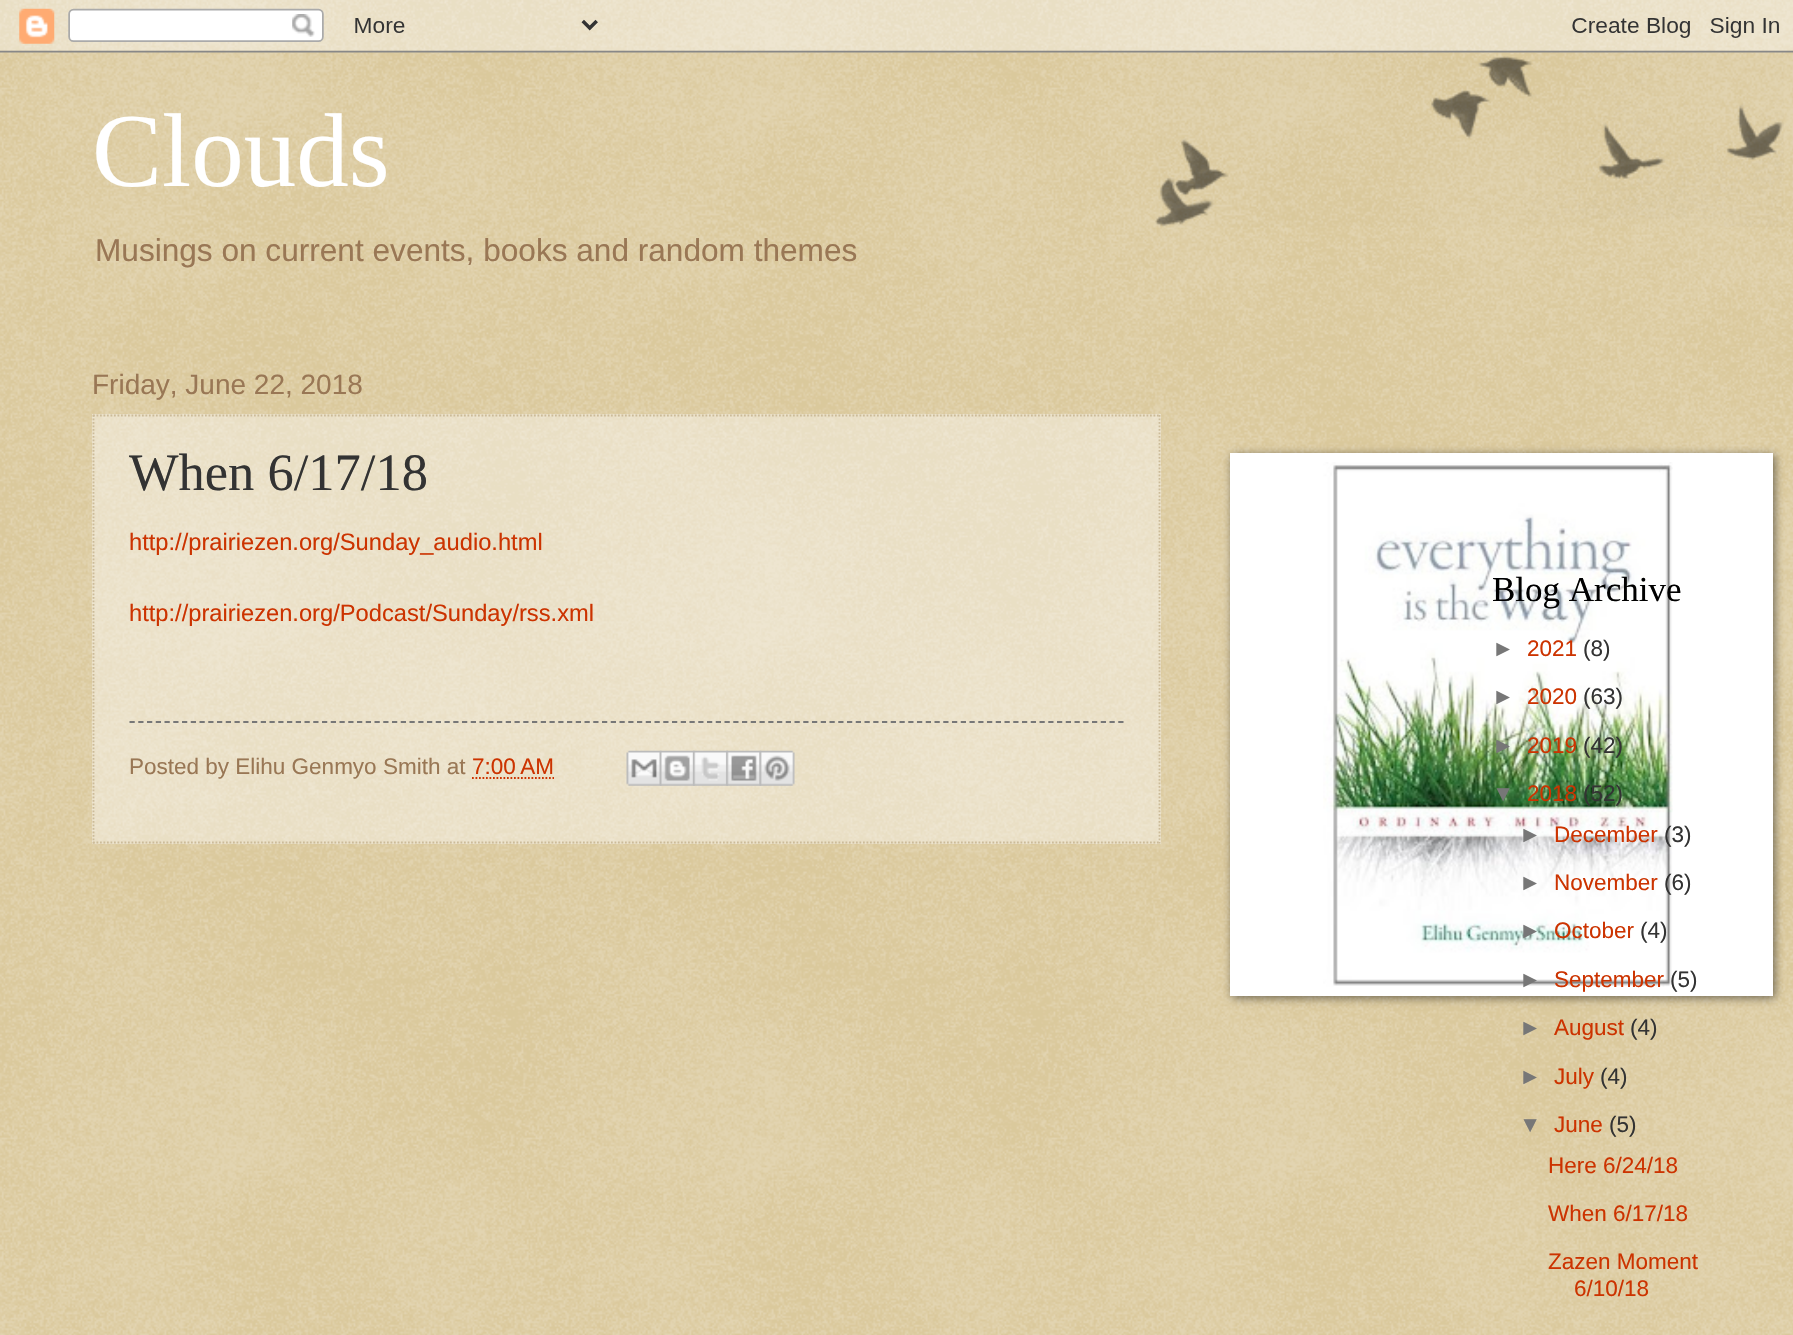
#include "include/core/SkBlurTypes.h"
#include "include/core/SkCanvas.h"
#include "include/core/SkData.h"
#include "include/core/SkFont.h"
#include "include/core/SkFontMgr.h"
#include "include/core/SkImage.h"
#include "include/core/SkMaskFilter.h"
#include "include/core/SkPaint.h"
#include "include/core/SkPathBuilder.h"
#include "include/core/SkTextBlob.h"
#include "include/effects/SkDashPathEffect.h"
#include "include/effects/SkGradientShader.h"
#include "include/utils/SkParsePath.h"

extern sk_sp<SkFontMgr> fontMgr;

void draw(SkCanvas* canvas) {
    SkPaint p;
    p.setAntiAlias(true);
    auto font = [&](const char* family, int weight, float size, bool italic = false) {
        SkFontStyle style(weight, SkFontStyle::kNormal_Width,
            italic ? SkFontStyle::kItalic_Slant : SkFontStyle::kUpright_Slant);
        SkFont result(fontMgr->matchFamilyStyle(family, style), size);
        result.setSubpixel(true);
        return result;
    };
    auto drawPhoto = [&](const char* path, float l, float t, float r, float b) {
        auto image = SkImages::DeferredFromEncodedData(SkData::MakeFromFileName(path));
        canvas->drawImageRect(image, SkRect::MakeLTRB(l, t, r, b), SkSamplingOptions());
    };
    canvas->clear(0xFFC0A154);
    drawPhoto("media/1.png", 0, 0, 1793, 1335);
    drawPhoto("media/2.png", 1155, 56, 1784, 227);
    drawPhoto("media/3.png", 0, 0, 1793, 53);
    auto font1 = font("Liberation Serif", 400, 105);
    p.setColor(0xFFFFFFFF);
    canvas->drawString("Clouds", 92, 186, font1, p);
    auto font2 = font("Liberation Sans", 400, 31.6f);
    p.setColor(0xFF997755);
    canvas->drawString("Musings on current events, books and random themes", 95, 261, font2, p);
    auto font3 = font("Liberation Sans", 400, 28);
    canvas->drawString("Friday, June 22, 2018", 92, 394, font3, p);
    p.setColor(0x66FFFFFF);
    canvas->drawRect(SkRect::MakeLTRB(92, 414, 1161, 844), p);
    p.setStyle(SkPaint::kStroke_Style);
    p.setStrokeWidth(1.8f);
    p.setColor(0xFFCCBB99);
    p.setPathEffect(SkDashPathEffect::Make({{1.75f, 1.75f}}, 0));
    canvas->drawPath(SkPathBuilder().moveTo(93, 415.5f).lineTo(1160, 415.5f).detach(), p);
    p.setPathEffect(nullptr);
    p.setPathEffect(SkDashPathEffect::Make({{1.75f, 1.75f}}, 0));
    canvas->drawPath(SkPathBuilder().moveTo(1159.5f, 415).lineTo(1159.5f, 843.5f).detach(), p);
    p.setPathEffect(nullptr);
    p.setPathEffect(SkDashPathEffect::Make({{1.75f, 1.75f}}, 0));
    canvas->drawPath(SkPathBuilder().moveTo(93, 842.5f).lineTo(1160, 842.5f).detach(), p);
    p.setPathEffect(nullptr);
    p.setPathEffect(SkDashPathEffect::Make({{1.75f, 1.75f}}, 0));
    canvas->drawPath(SkPathBuilder().moveTo(93.5f, 415).lineTo(93.5f, 843.5f).detach(), p);
    p.setPathEffect(nullptr);
    auto font4 = font("Liberation Serif", 400, 52.5f);
    p.setStyle(SkPaint::kFill_Style);
    p.setColor(0xFF333333);
    canvas->drawString("When 6/17/18", 129, 490, font4, p);
    auto font5 = font("Liberation Sans", 400, 23.7f);
    p.setColor(0xFFCC3300);
    canvas->drawString("http://prairiezen.org/Sunday_audio.html", 129, 550, font5, p);
    canvas->drawString("http://prairiezen.org/Podcast/Sunday/rss.xml", 129, 621, font5, p);
    p.setStyle(SkPaint::kStroke_Style);
    p.setColor(0xFF777777);
    p.setPathEffect(SkDashPathEffect::Make({{5.25f, 3.5f}}, 0));
    canvas->drawPath(SkPathBuilder().moveTo(129.5f, 722).lineTo(1123.5f, 722).detach(), p);
    p.setPathEffect(nullptr);
    auto font6 = font("Liberation Sans", 400, 22.5f);
    p.setStyle(SkPaint::kFill_Style);
    p.setColor(0xFF997755);
    canvas->drawString("Posted by Elihu Genmyo Smith at", 129, 774, font6, p);
    p.setColor(0xFFCC3300);
    canvas->drawString("7:00 AM", 472, 774, font6, p);
    p.setStyle(SkPaint::kStroke_Style);
    p.setPathEffect(SkDashPathEffect::Make({{1.75f, 1.75f}}, 0));
    canvas->drawPath(SkPathBuilder().moveTo(472, 778).lineTo(554, 778).detach(), p);
    p.setPathEffect(nullptr);
    drawPhoto("media/4.png", 626, 750, 662, 786);
    drawPhoto("media/5.png", 659, 750, 695, 786);
    drawPhoto("media/6.png", 693, 750, 728, 786);
    drawPhoto("media/7.png", 726, 750, 762, 786);
    drawPhoto("media/8.png", 759, 750, 795, 786);
    p.setStyle(SkPaint::kFill_Style);
    p.setColor(0x80000000);
    p.setMaskFilter(SkMaskFilter::MakeBlur(kNormal_SkBlurStyle, 4.5f));
    canvas->drawRect(SkRect::MakeLTRB(1232, 455, 1775, 998), p);
    p.setMaskFilter(nullptr);
    p.setColor(0xFFFFFFFF);
    canvas->drawRect(SkRect::MakeLTRB(1230, 453, 1773, 996), p);
    drawPhoto("media/9.png", 1323, 462, 1673, 987);
    auto font7 = font("Liberation Serif", 400, 35);
    p.setColor(0xFF000000);
    canvas->drawString("Blog Archive", 1492, 601, font7, p);
    p.setColor(0xFF777777);
    canvas->drawString("►", 1492, 656, font6, p);
    p.setColor(0xFFCC3300);
    canvas->drawString("2021", 1527, 656, font6, p);
    p.setColor(0xFF333333);
    canvas->drawString("(8)", 1583, 656, font6, p);
    p.setColor(0xFF777777);
    canvas->drawString("►", 1492, 704, font6, p);
    p.setColor(0xFFCC3300);
    canvas->drawString("2020", 1527, 704, font6, p);
    p.setColor(0xFF333333);
    canvas->drawString("(63)", 1583, 704, font6, p);
    p.setColor(0xFF777777);
    canvas->drawString("►", 1492, 753, font6, p);
    p.setColor(0xFFCC3300);
    canvas->drawString("2019", 1527, 753, font6, p);
    p.setColor(0xFF333333);
    canvas->drawString("(42)", 1583, 753, font6, p);
    p.setColor(0xFF777777);
    canvas->drawString("▼", 1492, 801, font6, p);
    p.setColor(0xFFCC3300);
    canvas->drawString("2018", 1527, 801, font6, p);
    p.setColor(0xFF333333);
    canvas->drawString("(52)", 1583, 801, font6, p);
    p.setColor(0xFF777777);
    canvas->drawString("►", 1519, 842, font6, p);
    p.setColor(0xFFCC3300);
    canvas->drawString("December", 1554, 842, font6, p);
    p.setColor(0xFF333333);
    canvas->drawString("(3)", 1664, 842, font6, p);
    p.setColor(0xFF777777);
    canvas->drawString("►", 1519, 890, font6, p);
    p.setColor(0xFFCC3300);
    canvas->drawString("November", 1554, 890, font6, p);
    p.setColor(0xFF333333);
    canvas->drawString("(6)", 1664, 890, font6, p);
    p.setColor(0xFF777777);
    canvas->drawString("►", 1519, 938, font6, p);
    p.setColor(0xFFCC3300);
    canvas->drawString("October", 1554, 938, font6, p);
    p.setColor(0xFF333333);
    canvas->drawString("(4)", 1640, 938, font6, p);
    p.setColor(0xFF777777);
    canvas->drawString("►", 1519, 987, font6, p);
    p.setColor(0xFFCC3300);
    canvas->drawString("September", 1554, 987, font6, p);
    p.setColor(0xFF333333);
    canvas->drawString("(5)", 1670, 987, font6, p);
    p.setColor(0xFF777777);
    canvas->drawString("►", 1519, 1035, font6, p);
    p.setColor(0xFFCC3300);
    canvas->drawString("August", 1554, 1035, font6, p);
    p.setColor(0xFF333333);
    canvas->drawString("(4)", 1630, 1035, font6, p);
    p.setColor(0xFF777777);
    canvas->drawString("►", 1519, 1084, font6, p);
    p.setColor(0xFFCC3300);
    canvas->drawString("July", 1554, 1084, font6, p);
    p.setColor(0xFF333333);
    canvas->drawString("(4)", 1600, 1084, font6, p);
    p.setColor(0xFF777777);
    canvas->drawString("▼", 1519, 1132, font6, p);
    p.setColor(0xFFCC3300);
    canvas->drawString("June", 1554, 1132, font6, p);
    p.setColor(0xFF333333);
    canvas->drawString("(5)", 1609, 1132, font6, p);
    p.setColor(0xFFCC3300);
    {
        const struct { const char* s; float x, y; } items[] = {
            {"Here 6/24/18", 1548, 1173},
            {"When 6/17/18", 1548, 1221},
            {"Zazen Moment", 1548, 1269},
            {"6/10/18", 1574, 1296},
        };
        for (auto [s, x, y] : items) {
            canvas->drawString(s, x, y, font6, p);
        }
    }
}
